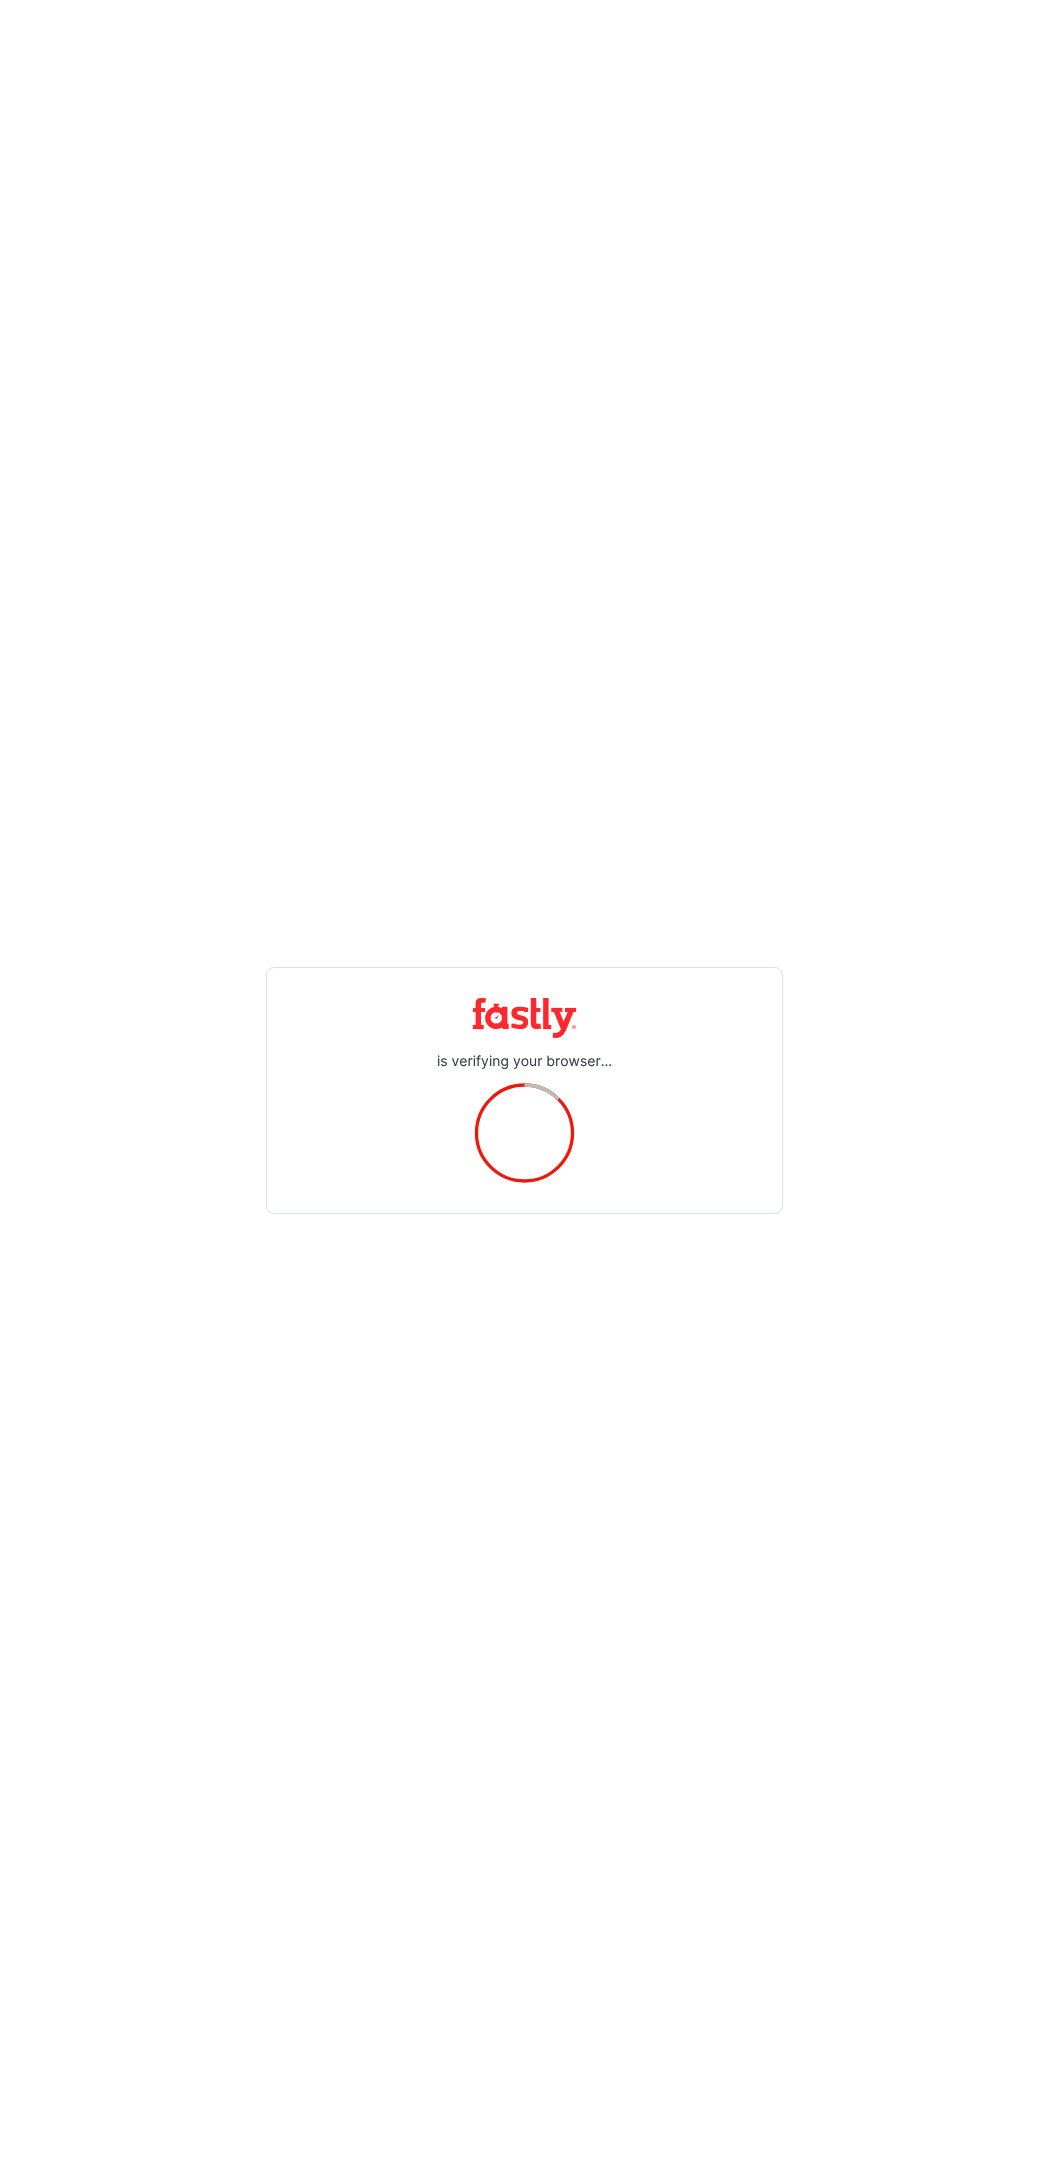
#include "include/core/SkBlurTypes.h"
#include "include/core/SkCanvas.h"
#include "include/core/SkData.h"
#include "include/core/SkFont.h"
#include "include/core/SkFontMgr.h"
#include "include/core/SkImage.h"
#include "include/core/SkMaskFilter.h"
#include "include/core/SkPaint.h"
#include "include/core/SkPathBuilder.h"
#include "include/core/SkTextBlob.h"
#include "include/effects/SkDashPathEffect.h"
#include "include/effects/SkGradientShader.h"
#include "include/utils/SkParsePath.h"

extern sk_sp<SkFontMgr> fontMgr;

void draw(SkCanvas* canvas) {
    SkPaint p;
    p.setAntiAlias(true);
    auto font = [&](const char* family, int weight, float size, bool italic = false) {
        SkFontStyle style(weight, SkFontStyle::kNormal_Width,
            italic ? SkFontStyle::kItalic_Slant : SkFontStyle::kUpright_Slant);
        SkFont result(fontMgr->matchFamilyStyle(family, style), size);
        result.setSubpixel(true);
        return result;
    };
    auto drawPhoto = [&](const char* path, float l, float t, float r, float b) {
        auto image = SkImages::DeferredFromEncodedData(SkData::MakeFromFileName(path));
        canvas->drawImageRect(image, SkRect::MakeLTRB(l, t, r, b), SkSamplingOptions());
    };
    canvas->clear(0xFFFFFFFF);
    p.setStyle(SkPaint::kStroke_Style);
    p.setStrokeWidth(1);
    p.setColor(0xFFDCE0E4);
    canvas->drawRoundRect(SkRect::MakeLTRB(266.5f, 967.5f, 782.5f, 1213.5f), 7.5f, 7.5f, p);
    drawPhoto("media/1.png", 472, 998, 577, 1038);
    auto font1 = font("Inter", 400, 14);
    p.setStyle(SkPaint::kFill_Style);
    p.setColor(0xFF3A424A);
    canvas->drawString("is verifying your browser...", 437, 1066, font1, p);
    p.setStyle(SkPaint::kStroke_Style);
    p.setStrokeWidth(3.3f);
    p.setColor(0xFFEB1A0C);
    canvas->drawPath(SkPathBuilder().moveTo(476.5f, 1133).cubicTo(476.5f, 1106.5f, 498, 1085, 524.5f, 1085).cubicTo(551, 1085, 572.5f, 1106.5f, 572.5f, 1133).cubicTo(572.5f, 1159.5f, 551, 1181, 524.5f, 1181).cubicTo(498, 1181, 476.5f, 1159.5f, 476.5f, 1133).close().detach(), p);
    p.setColor(0xFFC2BAB5);
    canvas->drawPath(SkPathBuilder().moveTo(558.5f, 1099).cubicTo(549.5f, 1090, 537, 1085, 524.5f, 1085).detach(), p);
}
